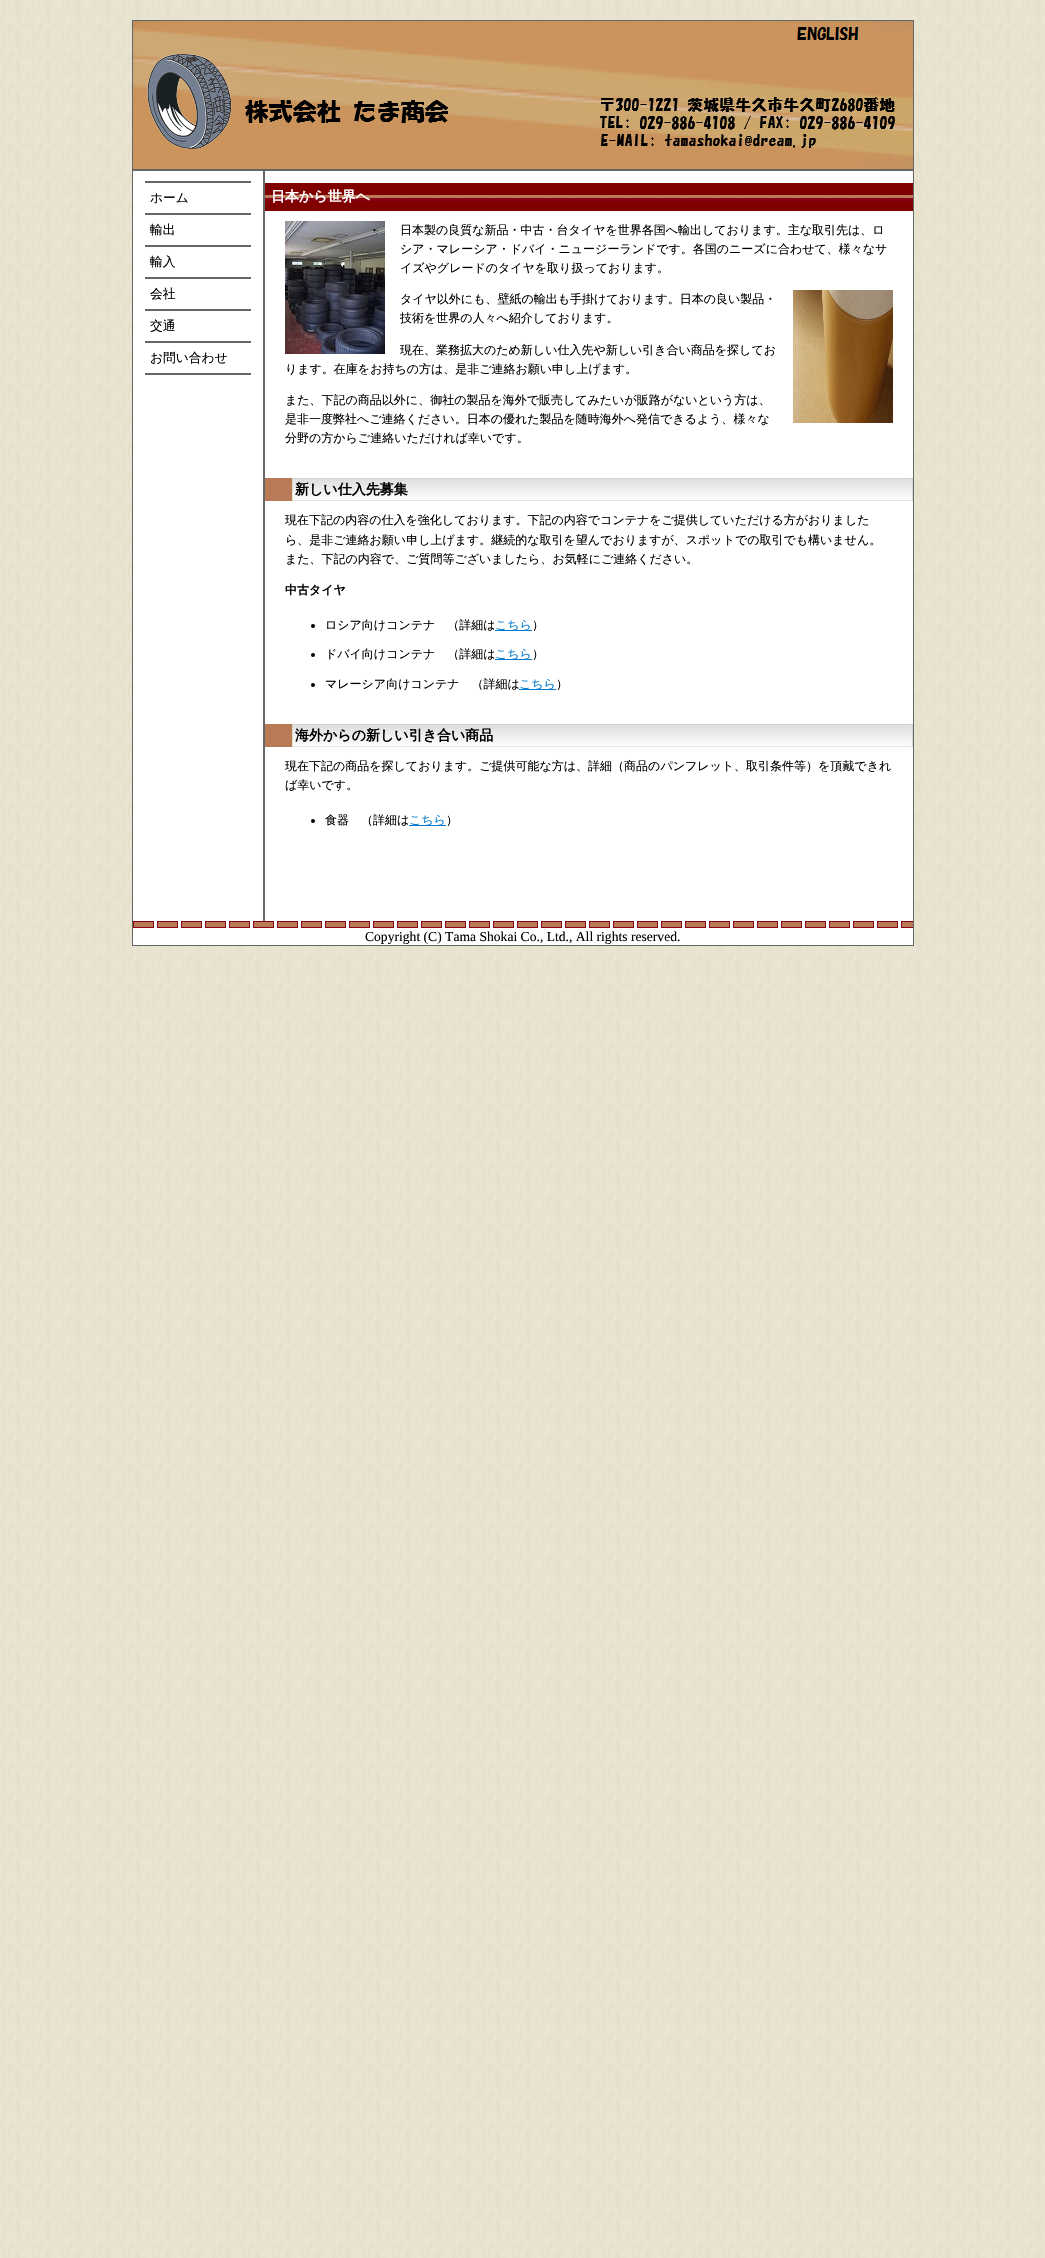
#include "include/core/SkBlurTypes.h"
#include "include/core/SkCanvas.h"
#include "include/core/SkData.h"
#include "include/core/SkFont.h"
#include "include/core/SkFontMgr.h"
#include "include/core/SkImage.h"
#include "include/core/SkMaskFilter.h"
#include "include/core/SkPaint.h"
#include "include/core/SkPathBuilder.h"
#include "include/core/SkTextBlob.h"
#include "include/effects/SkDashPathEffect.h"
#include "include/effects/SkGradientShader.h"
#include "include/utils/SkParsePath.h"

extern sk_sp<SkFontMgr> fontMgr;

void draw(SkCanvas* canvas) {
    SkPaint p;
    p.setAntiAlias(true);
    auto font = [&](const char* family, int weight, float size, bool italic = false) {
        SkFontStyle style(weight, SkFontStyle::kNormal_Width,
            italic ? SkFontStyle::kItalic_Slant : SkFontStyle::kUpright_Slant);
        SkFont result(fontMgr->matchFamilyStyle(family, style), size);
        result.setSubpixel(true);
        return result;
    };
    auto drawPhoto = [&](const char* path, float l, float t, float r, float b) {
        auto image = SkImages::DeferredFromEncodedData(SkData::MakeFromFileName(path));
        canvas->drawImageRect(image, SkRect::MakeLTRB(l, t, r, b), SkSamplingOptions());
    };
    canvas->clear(0xFFFFFFFF);
    drawPhoto("media/1.png", 0, 0, 1045, 2258);
    p.setColor(0xFFFFFFFF);
    canvas->drawRect(SkRect::MakeLTRB(133, 171, 913, 945), p);
    p.setStyle(SkPaint::kStroke_Style);
    p.setStrokeWidth(1);
    p.setColor(0xFF666666);
    canvas->drawRect(SkRect::MakeLTRB(132.5f, 20.5f, 913.5f, 945.5f), p);
    drawPhoto("media/2.png", 133, 21, 913, 169);
    p.setStyle(SkPaint::kFill_Style);
    canvas->drawRect(SkRect::MakeLTRB(133, 169, 913, 171), p);
    drawPhoto("media/3.png", 797, 27, 859, 40);
    drawPhoto("media/4.png", 147, 54, 449, 149);
    drawPhoto("media/5.png", 600, 97, 895, 148);
    canvas->drawRect(SkRect::MakeLTRB(145, 181, 251, 183), p);
    canvas->drawRect(SkRect::MakeLTRB(145, 213, 251, 215), p);
    auto font1 = font("WenQuanYi Zen Hei", 500, 12.75f);
    p.setColor(0xFF000000);
    canvas->drawString("ホーム", 150, 202, font1, p);
    p.setColor(0xFF666666);
    canvas->drawRect(SkRect::MakeLTRB(145, 245, 251, 247), p);
    p.setColor(0xFF000000);
    canvas->drawString("輸出", 150, 234, font1, p);
    p.setColor(0xFF666666);
    canvas->drawRect(SkRect::MakeLTRB(145, 277, 251, 279), p);
    p.setColor(0xFF000000);
    canvas->drawString("輸入", 150, 266, font1, p);
    p.setColor(0xFF666666);
    canvas->drawRect(SkRect::MakeLTRB(145, 309, 251, 311), p);
    p.setColor(0xFF000000);
    canvas->drawString("会社", 150, 298, font1, p);
    p.setColor(0xFF666666);
    canvas->drawRect(SkRect::MakeLTRB(145, 341, 251, 343), p);
    p.setColor(0xFF000000);
    canvas->drawString("交通", 150, 330, font1, p);
    p.setColor(0xFF666666);
    canvas->drawRect(SkRect::MakeLTRB(145, 373, 251, 375), p);
    p.setColor(0xFF000000);
    canvas->drawString("お問い合わせ", 150, 362, font1, p);
    p.setColor(0xFF666666);
    canvas->drawRect(SkRect::MakeLTRB(263, 171, 265, 921), p);
    drawPhoto("media/6.png", 265, 183, 913, 211);
    auto font2 = font("WenQuanYi Zen Hei", 700, 14);
    p.setColor(0xFFFFFFFF);
    canvas->drawString("日本から世界へ", 271, 201, font2, p);
    drawPhoto("media/7.png", 285, 221, 385, 354);
    auto font3 = font("WenQuanYi Zen Hei", 500, 12);
    p.setColor(0xFF000000);
    {
        const struct { const char* s; float x, y; } items[] = {
            {"日本製の良質な新品・中古・台タイヤを世界各国へ輸出しております。主な取引先は、ロ", 400, 234},
            {"シア・マレーシア・ドバイ・ニュージーランドです。各国のニーズに合わせて、様々なサ", 400, 253},
            {"イズやグレードのタイヤを取り扱っております。", 400, 272},
            {"タイヤ以外にも、壁紙の輸出も手掛けております。日本の良い製品・", 400, 303},
        };
        for (auto [s, x, y] : items) {
            canvas->drawString(s, x, y, font3, p);
        }
    }
    drawPhoto("media/8.png", 793, 290, 893, 423);
    {
        const struct { const char* s; float x, y; } items[] = {
            {"技術を世界の人々へ紹介しております。", 400, 322},
            {"現在、業務拡大のため新しい仕入先や新しい引き合い商品を探してお", 400, 354},
            {"ります。在庫をお持ちの方は、是非ご連絡お願い申し上げます。", 285, 373},
            {"また、下記の商品以外に、御社の製品を海外で販売してみたいが販路がないという方は、", 285, 404},
            {"是非一度弊社へご連絡ください。日本の優れた製品を随時海外へ発信できるよう、様々な", 285, 423},
            {"分野の方からご連絡いただければ幸いです。", 285, 442},
        };
        for (auto [s, x, y] : items) {
            canvas->drawString(s, x, y, font3, p);
        }
    }
    drawPhoto("media/9.png", 265, 478, 913, 501);
    canvas->drawString("新しい仕入先募集", 295, 494, font2, p);
    {
        const struct { const char* s; float x, y; } items[] = {
            {"現在下記の内容の仕入を強化しております。下記の内容でコンテナをご提供していただける方がおりました", 285, 524},
            {"ら、是非ご連絡お願い申し上げます。継続的な取引を望んでおりますが、スポットでの取引でも構いません。", 285, 544},
            {"また、下記の内容で、ご質問等ございましたら、お気軽にご連絡ください。", 285, 563},
        };
        for (auto [s, x, y] : items) {
            canvas->drawString(s, x, y, font3, p);
        }
    }
    auto font4 = font("WenQuanYi Zen Hei", 700, 12);
    canvas->drawString("中古タイヤ", 285, 594, font4, p);
    canvas->drawCircle(313, 626, 2, p);
    canvas->drawString("ロシア向けコンテナ　（詳細は", 325, 629, font3, p);
    p.setColor(0xFF017ACD);
    canvas->drawRect(SkRect::MakeLTRB(495, 630, 532, 631), p);
    canvas->drawString("こちら", 495, 629, font3, p);
    p.setColor(0xFF000000);
    canvas->drawString("）", 532, 629, font3, p);
    canvas->drawCircle(313, 655, 2, p);
    canvas->drawString("ドバイ向けコンテナ　（詳細は", 325, 658, font3, p);
    p.setColor(0xFF017ACD);
    canvas->drawRect(SkRect::MakeLTRB(495, 659, 532, 660), p);
    canvas->drawString("こちら", 495, 658, font3, p);
    p.setColor(0xFF000000);
    canvas->drawString("）", 532, 658, font3, p);
    canvas->drawCircle(313, 685, 2, p);
    canvas->drawString("マレーシア向けコンテナ　（詳細は", 325, 688, font3, p);
    p.setColor(0xFF017ACD);
    canvas->drawRect(SkRect::MakeLTRB(519, 689, 556, 690), p);
    canvas->drawString("こちら", 519, 688, font3, p);
    p.setColor(0xFF000000);
    canvas->drawString("）", 556, 688, font3, p);
    drawPhoto("media/9.png", 265, 724, 913, 747);
    canvas->drawString("海外からの新しい引き合い商品", 295, 740, font2, p);
    canvas->drawString("現在下記の商品を探しております。ご提供可能な方は、詳細（商品のパンフレット、取引条件等）を頂戴できれ", 285, 770, font3, p);
    canvas->drawString("ば幸いです。", 285, 789, font3, p);
    canvas->drawCircle(313, 821, 2, p);
    canvas->drawString("食器　（詳細は", 325, 824, font3, p);
    p.setColor(0xFF017ACD);
    canvas->drawRect(SkRect::MakeLTRB(409, 825, 446, 826), p);
    canvas->drawString("こちら", 409, 824, font3, p);
    p.setColor(0xFF000000);
    canvas->drawString("）", 446, 824, font3, p);
    drawPhoto("media/10.png", 133, 921, 913, 928);
    auto font5 = font("Liberation Serif", 400, 13.6f);
    canvas->drawString("Copyright (C) Tama Shokai Co., Ltd., All rights reserved.", 365, 941, font5, p);
}
